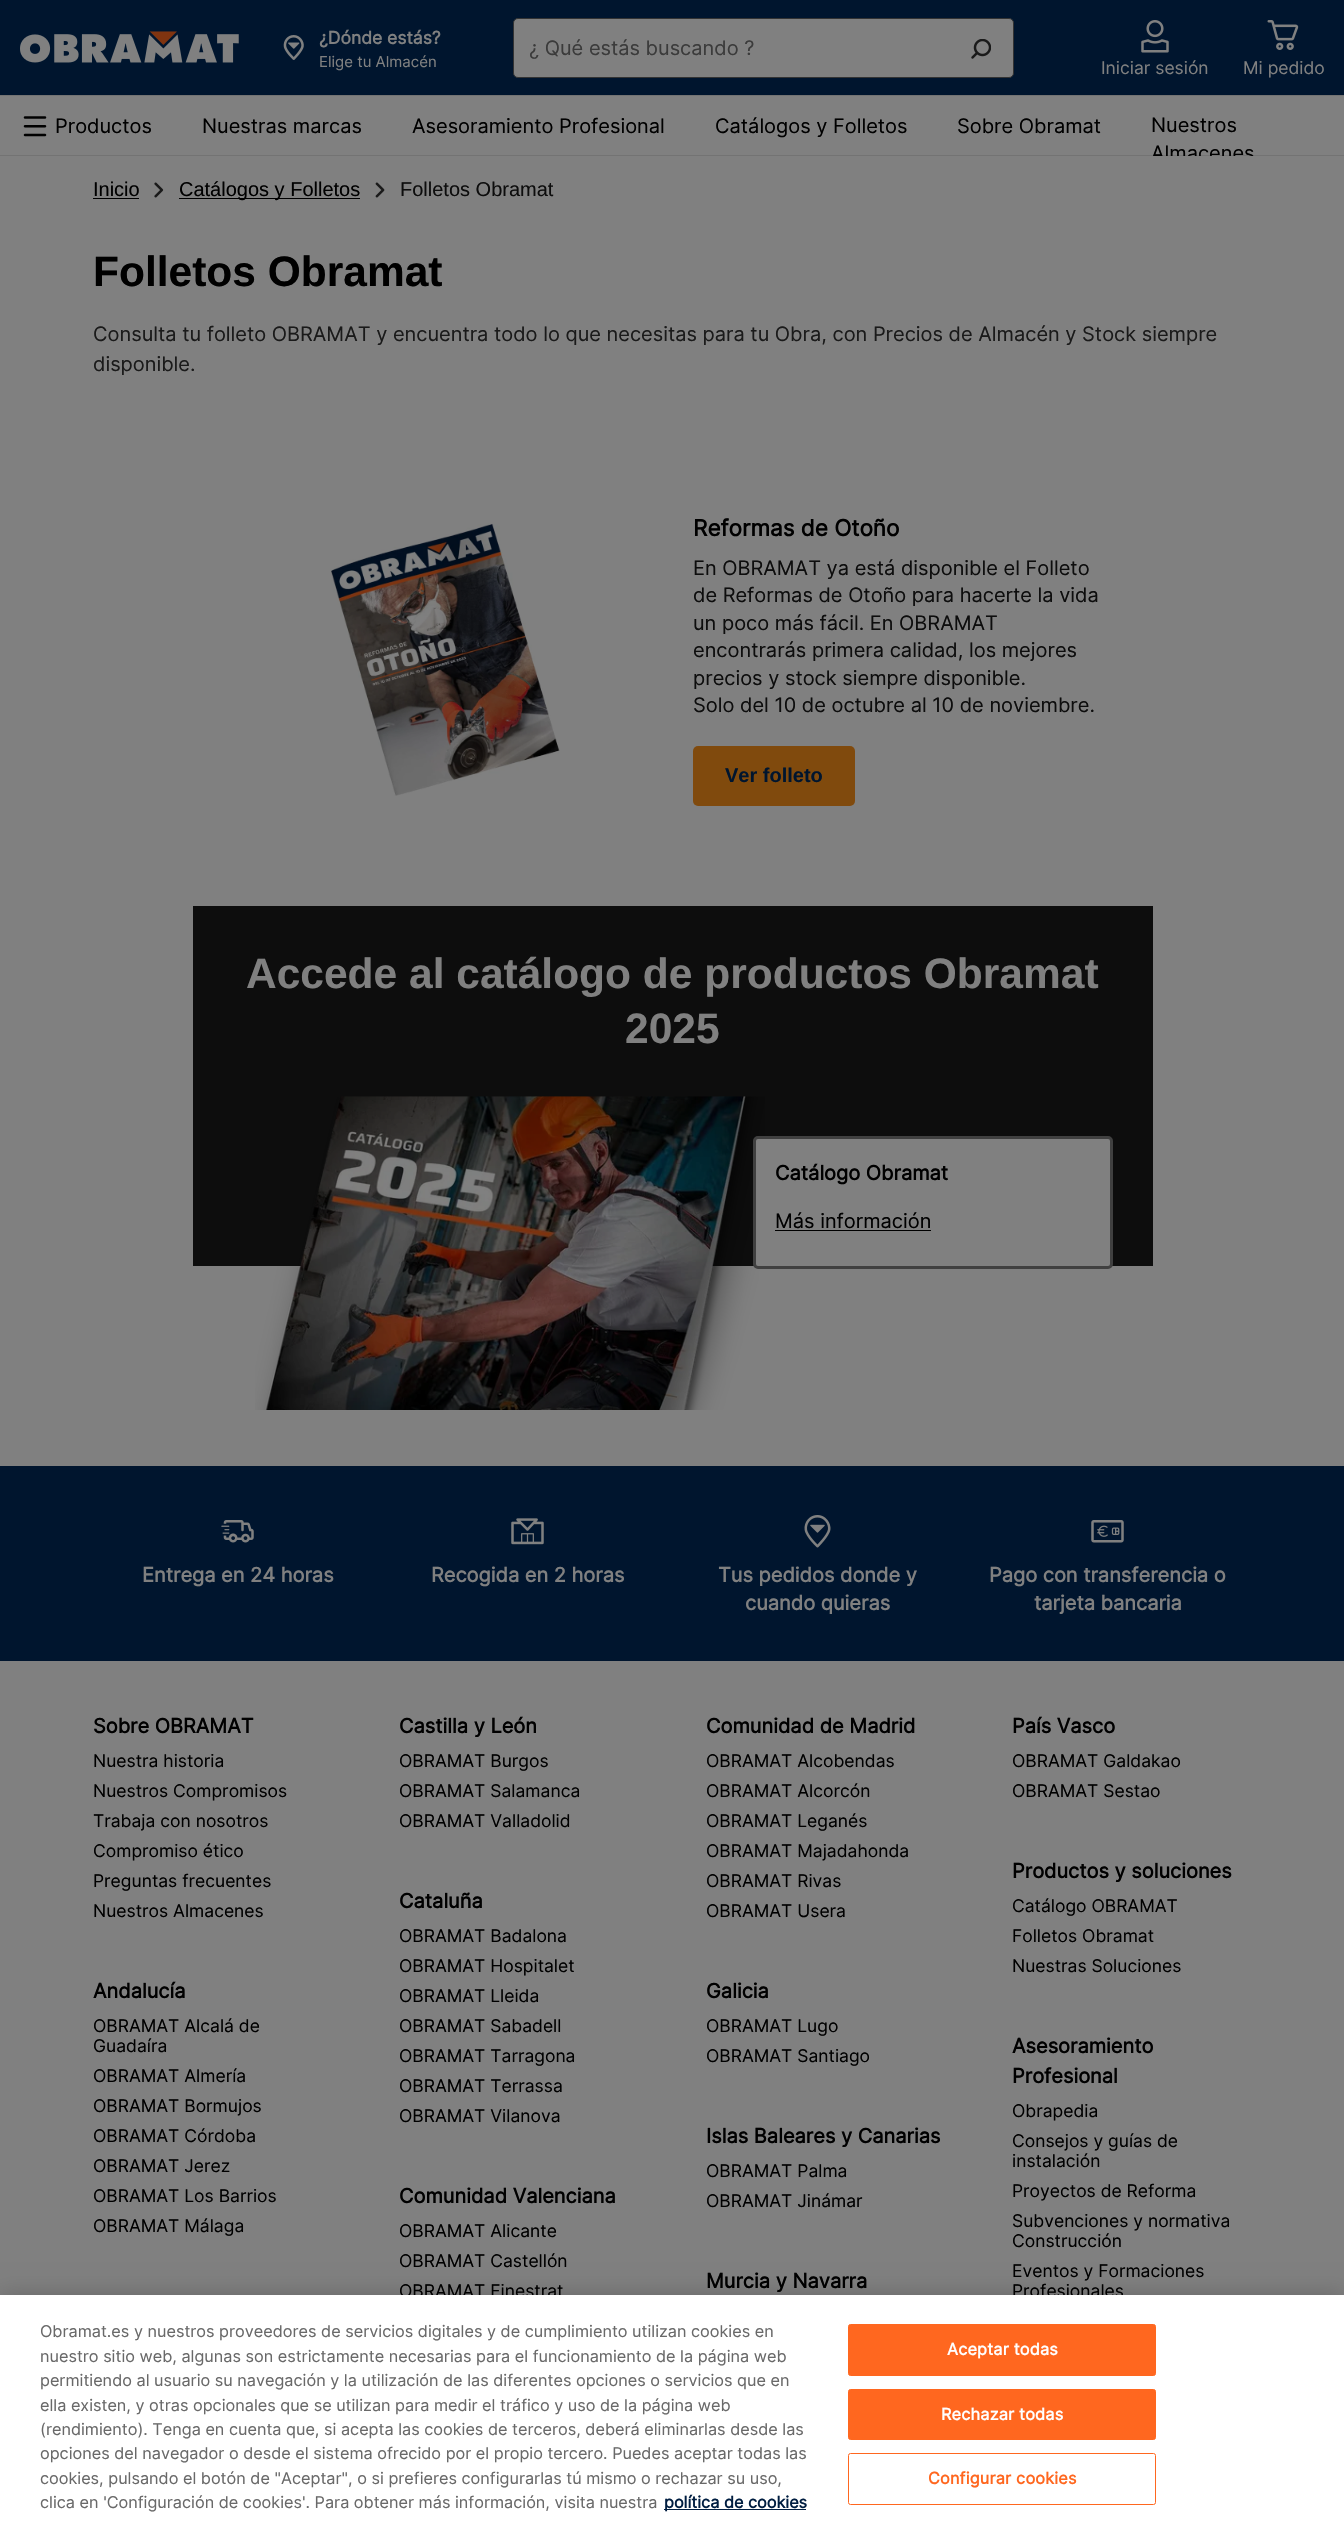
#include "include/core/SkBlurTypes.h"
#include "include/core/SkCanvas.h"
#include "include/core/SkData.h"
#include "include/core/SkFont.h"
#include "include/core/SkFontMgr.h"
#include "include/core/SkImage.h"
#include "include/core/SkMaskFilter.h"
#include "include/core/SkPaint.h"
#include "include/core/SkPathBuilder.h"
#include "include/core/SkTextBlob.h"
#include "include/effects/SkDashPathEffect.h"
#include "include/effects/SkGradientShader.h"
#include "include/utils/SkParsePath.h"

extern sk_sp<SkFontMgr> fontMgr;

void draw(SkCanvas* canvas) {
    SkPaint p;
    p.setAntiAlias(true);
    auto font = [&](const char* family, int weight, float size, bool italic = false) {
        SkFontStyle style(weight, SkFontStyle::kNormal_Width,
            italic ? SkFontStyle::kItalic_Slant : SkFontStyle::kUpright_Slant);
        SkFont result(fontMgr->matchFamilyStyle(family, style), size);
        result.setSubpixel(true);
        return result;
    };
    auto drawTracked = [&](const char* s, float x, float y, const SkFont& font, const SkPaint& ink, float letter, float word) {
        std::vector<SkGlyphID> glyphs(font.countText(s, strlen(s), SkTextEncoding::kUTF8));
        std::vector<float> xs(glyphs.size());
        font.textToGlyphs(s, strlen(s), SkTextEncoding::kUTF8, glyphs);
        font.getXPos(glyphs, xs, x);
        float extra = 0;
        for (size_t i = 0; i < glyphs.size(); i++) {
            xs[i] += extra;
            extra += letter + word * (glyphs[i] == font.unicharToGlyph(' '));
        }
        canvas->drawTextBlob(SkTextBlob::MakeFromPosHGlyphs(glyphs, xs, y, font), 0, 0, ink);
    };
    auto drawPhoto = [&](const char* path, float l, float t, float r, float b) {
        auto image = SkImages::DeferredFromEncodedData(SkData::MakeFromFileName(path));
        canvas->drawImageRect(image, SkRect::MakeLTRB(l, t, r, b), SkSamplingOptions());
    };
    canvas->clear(0xFF808080);
    p.setColor(0xFF00152E);
    canvas->drawRect(SkRect::MakeLTRB(0, 0, 1344, 95), p);
    drawPhoto("media/1.png", 20, 31, 239, 63);
    drawPhoto("media/2.png", 283, 35, 304, 60);
    auto font1 = font("Inter", 700, 17.5f);
    p.setColor(0xFF808080);
    canvas->drawString("¿Dónde estás?", 319, 44, font1, p);
    auto font2 = font("Inter", 400, 15);
    canvas->drawString("Elige tu Almacén", 319, 67, font2, p);
    canvas->drawRoundRect(SkRect::MakeLTRB(513.5f, 18.5f, 1013.5f, 77.5f), 4.5f, 4.5f, p);
    p.setStyle(SkPaint::kStroke_Style);
    p.setStrokeWidth(1);
    p.setColor(0xFF333333);
    canvas->drawRoundRect(SkRect::MakeLTRB(513.5f, 18.5f, 1013.5f, 77.5f), 4.5f, 4.5f, p);
    auto font3 = font("Inter", 400, 20);
    p.setStyle(SkPaint::kFill_Style);
    p.setColor(0xFF3B3B3B);
    canvas->drawString("¿ Qué estás buscando ?", 529, 55, font3, p);
    drawPhoto("media/3.png", 971, 39, 991, 59);
    drawPhoto("media/4.png", 1141, 20, 1169, 53);
    auto font4 = font("Inter", 400, 17.5f);
    p.setColor(0xFF808080);
    canvas->drawString("Iniciar sesión", 1101, 74, font4, p);
    drawPhoto("media/5.png", 1267, 20, 1299, 50);
    canvas->drawString("Mi pedido", 1243, 74, font4, p);
    p.setColor(0xFF737373);
    canvas->drawRect(SkRect::MakeLTRB(0, 95, 1344, 96), p);
    drawPhoto("media/6.png", 23, 116, 47, 137);
    p.setColor(0xFF000000);
    {
        const struct { const char* s; float x, y; } items[] = {
            {"Productos", 55, 133},
            {"Nuestras marcas", 202, 133},
            {"Asesoramiento Profesional", 412, 133},
            {"Catálogos y Folletos", 715, 133},
            {"Sobre Obramat", 957, 133},
            {"Nuestros", 1151, 132},
        };
        for (auto [s, x, y] : items) {
            canvas->drawString(s, x, y, font3, p);
        }
    }
    p.setColor(0xFF737373);
    canvas->drawRect(SkRect::MakeLTRB(0, 155, 1344, 156), p);
    canvas->save();
    canvas->clipRect(SkRect::MakeLTRB(1101, 96, 1325, 156));
    p.setColor(0xFF000000);
    canvas->drawString("Almacenes", 1151, 160, font3, p);
    canvas->restore();
    auto font5 = font("Liberation Sans", 400, 20);
    canvas->drawString("Inicio", 93, 196, font5, p);
    canvas->drawRect(SkRect::MakeLTRB(93, 198, 139, 199), p);
    drawPhoto("media/7.png", 154, 182, 164, 198);
    canvas->drawRect(SkRect::MakeLTRB(179, 198, 360, 199), p);
    canvas->drawString("Catálogos y Folletos", 179, 196, font5, p);
    drawPhoto("media/8.png", 375, 182, 385, 198);
    p.setColor(0xFF0D0D0D);
    canvas->drawString("Folletos Obramat", 400, 196, font5, p);
    auto font6 = font("Liberation Sans", 700, 42.5f);
    p.setColor(0xFF000000);
    canvas->drawString("Folletos Obramat", 93, 286, font6, p);
    p.setColor(0xFF1A1A1A);
    canvas->drawString("Consulta tu folleto OBRAMAT y encuentra todo lo que necesitas para tu Obra, con Precios de Almacén y Stock siempre", 93, 341, font3, p);
    canvas->drawString("disponible.", 93, 371, font3, p);
    drawPhoto("media/9.png", 331, 523, 560, 796);
    auto font7 = font("Inter", 700, 22.5f);
    p.setColor(0xFF000000);
    canvas->drawString("Reformas de Otoño", 693, 536, font7, p);
    p.setColor(0xFF0D0D0D);
    {
        const struct { const char* s; float x, y; } items[] = {
            {"En OBRAMAT ya está disponible el Folleto", 693, 575},
            {"de Reformas de Otoño para hacerte la vida", 693, 602},
            {"un poco más fácil. En OBRAMAT", 693, 630},
            {"encontrarás primera calidad, los mejores", 693, 657},
            {"precios y stock siempre disponible.", 693, 685},
            {"Solo del 10 de octubre al 10 de noviembre.", 693, 712},
        };
        for (auto [s, x, y] : items) {
            canvas->drawString(s, x, y, font3, p);
        }
    }
    p.setColor(0xFF804A0D);
    canvas->drawRoundRect(SkRect::MakeLTRB(693, 746, 855, 806), 5, 5, p);
    auto font8 = font("Liberation Sans", 700, 20);
    p.setColor(0xFF00152E);
    canvas->drawString("Ver folleto", 725, 782, font8, p);
    p.setColor(0xFF0D0D0D);
    canvas->drawRect(SkRect::MakeLTRB(193, 906, 1153, 1266), p);
    p.setColor(0xFF808080);
    canvas->drawString("Accede al catálogo de productos Obramat", 246, 988, font6, p);
    canvas->drawString("2025", 625, 1043, font6, p);
    drawPhoto("media/10.png", 255, 1096, 765, 1410);
    canvas->drawRoundRect(SkRect::MakeLTRB(754.5f, 1137.5f, 1111.5f, 1267.5f), 3.5f, 3.5f, p);
    p.setStyle(SkPaint::kStroke_Style);
    p.setStrokeWidth(3);
    p.setColor(0xFF404040);
    canvas->drawRoundRect(SkRect::MakeLTRB(754.5f, 1137.5f, 1111.5f, 1267.5f), 3.5f, 3.5f, p);
    auto font9 = font("Inter", 700, 20);
    p.setStyle(SkPaint::kFill_Style);
    p.setColor(0xFF000000);
    canvas->drawString("Catálogo Obramat", 775, 1180, font9, p);
    canvas->drawString("Más información", 775, 1228, font3, p);
    canvas->drawRect(SkRect::MakeLTRB(775, 1230, 931, 1231), p);
    p.setColor(0xFF00152E);
    canvas->drawRect(SkRect::MakeLTRB(0, 1466, 1344, 1661), p);
    drawPhoto("media/11.png", 221, 1520, 254, 1543);
    p.setColor(0xFF808080);
    canvas->drawString("Entrega en 24 horas", 142, 1582, font9, p);
    drawPhoto("media/12.png", 511, 1518, 544, 1545);
    canvas->drawString("Recogida en 2 horas", 431, 1582, font9, p);
    drawPhoto("media/13.png", 804, 1515, 831, 1548);
    canvas->drawString("Tus pedidos donde y", 718, 1582, font9, p);
    canvas->drawString("cuando quieras", 745, 1610, font9, p);
    drawPhoto("media/14.png", 1091, 1520, 1124, 1543);
    canvas->drawString("Pago con transferencia o", 989, 1582, font9, p);
    canvas->drawString("tarjeta bancaria", 1034, 1610, font9, p);
    p.setColor(0xFF000000);
    canvas->drawString("Sobre OBRAMAT", 93, 1733, font9, p);
    {
        const struct { const char* s; float x, y; } items[] = {
            {"Nuestra historia", 93, 1767},
            {"Nuestros Compromisos", 93, 1797},
            {"Trabaja con nosotros", 93, 1827},
            {"Compromiso ético", 93, 1857},
            {"Preguntas frecuentes", 93, 1887},
            {"Nuestros Almacenes", 93, 1917},
        };
        for (auto [s, x, y] : items) {
            canvas->drawString(s, x, y, font4, p);
        }
    }
    canvas->drawString("Andalucía", 93, 1998, font9, p);
    {
        const struct { const char* s; float x, y; } items[] = {
            {"OBRAMAT Alcalá de", 93, 2032},
            {"Guadaíra", 93, 2052},
            {"OBRAMAT Almería", 93, 2082},
            {"OBRAMAT Bormujos", 93, 2112},
            {"OBRAMAT Córdoba", 93, 2142},
            {"OBRAMAT Jerez", 93, 2172},
            {"OBRAMAT Los Barrios", 93, 2202},
            {"OBRAMAT Málaga", 93, 2232},
        };
        for (auto [s, x, y] : items) {
            canvas->drawString(s, x, y, font4, p);
        }
    }
    canvas->drawString("Castilla y León", 399, 1733, font9, p);
    {
        const struct { const char* s; float x, y; } items[] = {
            {"OBRAMAT Burgos", 399, 1767},
            {"OBRAMAT Salamanca", 399, 1797},
            {"OBRAMAT Valladolid", 399, 1827},
        };
        for (auto [s, x, y] : items) {
            canvas->drawString(s, x, y, font4, p);
        }
    }
    canvas->drawString("Cataluña", 399, 1908, font9, p);
    {
        const struct { const char* s; float x, y; } items[] = {
            {"OBRAMAT Badalona", 399, 1942},
            {"OBRAMAT Hospitalet", 399, 1972},
            {"OBRAMAT Lleida", 399, 2002},
            {"OBRAMAT Sabadell", 399, 2032},
            {"OBRAMAT Tarragona", 399, 2062},
            {"OBRAMAT Terrassa", 399, 2092},
            {"OBRAMAT Vilanova", 399, 2122},
        };
        for (auto [s, x, y] : items) {
            canvas->drawString(s, x, y, font4, p);
        }
    }
    canvas->drawString("Comunidad Valenciana", 399, 2203, font9, p);
    {
        const struct { const char* s; float x, y; } items[] = {
            {"OBRAMAT Alicante", 399, 2237},
            {"OBRAMAT Castellón", 399, 2267},
            {"OBRAMAT Finestrat", 399, 2297},
        };
        for (auto [s, x, y] : items) {
            canvas->drawString(s, x, y, font4, p);
        }
    }
    canvas->drawString("Comunidad de Madrid", 706, 1733, font9, p);
    {
        const struct { const char* s; float x, y; } items[] = {
            {"OBRAMAT Alcobendas", 706, 1767},
            {"OBRAMAT Alcorcón", 706, 1797},
            {"OBRAMAT Leganés", 706, 1827},
            {"OBRAMAT Majadahonda", 706, 1857},
            {"OBRAMAT Rivas", 706, 1887},
            {"OBRAMAT Usera", 706, 1917},
        };
        for (auto [s, x, y] : items) {
            canvas->drawString(s, x, y, font4, p);
        }
    }
    canvas->drawString("Galicia", 706, 1998, font9, p);
    canvas->drawString("OBRAMAT Lugo", 706, 2032, font4, p);
    canvas->drawString("OBRAMAT Santiago", 706, 2062, font4, p);
    canvas->drawString("Islas Baleares y Canarias", 706, 2143, font9, p);
    canvas->drawString("OBRAMAT Palma", 706, 2177, font4, p);
    canvas->drawString("OBRAMAT Jinámar", 706, 2207, font4, p);
    canvas->drawString("Murcia y Navarra", 706, 2288, font9, p);
    canvas->drawString("País Vasco", 1012, 1733, font9, p);
    canvas->drawString("OBRAMAT Galdakao", 1012, 1767, font4, p);
    canvas->drawString("OBRAMAT Sestao", 1012, 1797, font4, p);
    canvas->drawString("Productos y soluciones", 1012, 1878, font9, p);
    {
        const struct { const char* s; float x, y; } items[] = {
            {"Catálogo OBRAMAT", 1012, 1912},
            {"Folletos Obramat", 1012, 1942},
            {"Nuestras Soluciones", 1012, 1972},
        };
        for (auto [s, x, y] : items) {
            canvas->drawString(s, x, y, font4, p);
        }
    }
    canvas->drawString("Asesoramiento", 1012, 2053, font9, p);
    canvas->drawString("Profesional", 1012, 2083, font9, p);
    {
        const struct { const char* s; float x, y; } items[] = {
            {"Obrapedia", 1012, 2117},
            {"Consejos y guías de", 1012, 2147},
            {"instalación", 1012, 2167},
            {"Proyectos de Reforma", 1012, 2197},
            {"Subvenciones y normativa", 1012, 2227},
            {"Construcción", 1012, 2247},
            {"Eventos y Formaciones", 1012, 2277},
            {"Profesionales", 1012, 2297},
        };
        for (auto [s, x, y] : items) {
            canvas->drawString(s, x, y, font4, p);
        }
    }
    p.setColor(0x33000000);
    p.setMaskFilter(SkMaskFilter::MakeBlur(kNormal_SkBlurStyle, 11));
    canvas->drawRect(SkRect::MakeLTRB(0, 2295, 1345, 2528), p);
    p.setMaskFilter(nullptr);
    p.setColor(0xFFFFFFFF);
    canvas->drawRect(SkRect::MakeLTRB(0, 2295, 1344, 2527), p);
    auto font10 = font("Inter", 400, 16.25f);
    p.setColor(0xFF696969);
    {
        const struct { const char* s; float x, y; } items[] = {
            {"Obramat.es y nuestros proveedores de servicios digitales y de cumplimiento utilizan cookies en", 40, 2337},
            {"nuestro sitio web, algunas son estrictamente necesarias para el funcionamiento de la página web", 40, 2362},
            {"permitiendo al usuario su navegación y la utilización de las diferentes opciones o servicios que en", 40, 2386},
            {"ella existen, y otras opcionales que se utilizan para medir el tráfico y uso de la página web", 40, 2411},
            {"(rendimiento). Tenga en cuenta que, si acepta las cookies de terceros, deberá eliminarlas desde las", 40, 2435},
            {"opciones del navegador o desde el sistema ofrecido por el propio tercero. Puedes aceptar todas las", 40, 2459},
            {"cookies, pulsando el botón de \"Aceptar\", o si prefieres configurarlas tú mismo o rechazar su uso,", 40, 2484},
            {"clica en 'Configuración de cookies'. Para obtener más información, visita nuestra", 40, 2508},
        };
        for (auto [s, x, y] : items) {
            canvas->drawString(s, x, y, font10, p);
        }
    }
    p.setColor(0xFF011E41);
    canvas->drawRect(SkRect::MakeLTRB(664, 2509, 806, 2510), p);
    auto font11 = font("Inter", 700, 16.25f);
    canvas->drawString("política de cookies", 664, 2508, font11, p);
    p.setColor(0xFFFF671F);
    canvas->drawRoundRect(SkRect::MakeLTRB(848.5f, 2324.5f, 1155.5f, 2375.5f), 2, 2, p);
    p.setStyle(SkPaint::kStroke_Style);
    p.setStrokeWidth(1);
    canvas->drawRoundRect(SkRect::MakeLTRB(848.5f, 2324.5f, 1155.5f, 2375.5f), 2, 2, p);
    p.setStyle(SkPaint::kFill_Style);
    p.setColor(0xFFFFFFFF);
    drawTracked("Aceptar todas", 947, 2355, font11, p, 0.2f, 0);
    p.setColor(0xFFFF671F);
    canvas->drawRoundRect(SkRect::MakeLTRB(848.5f, 2389.5f, 1155.5f, 2439.5f), 2, 2, p);
    p.setStyle(SkPaint::kStroke_Style);
    canvas->drawRoundRect(SkRect::MakeLTRB(848.5f, 2389.5f, 1155.5f, 2439.5f), 2, 2, p);
    p.setStyle(SkPaint::kFill_Style);
    p.setColor(0xFFFFFFFF);
    drawTracked("Rechazar todas", 941, 2420, font11, p, 0.2f, 0);
    p.setStyle(SkPaint::kStroke_Style);
    p.setColor(0xFFFF671F);
    canvas->drawRoundRect(SkRect::MakeLTRB(848.5f, 2453.5f, 1155.5f, 2504.5f), 2, 2, p);
    p.setStyle(SkPaint::kFill_Style);
    drawTracked("Configurar cookies", 928, 2484, font11, p, 0.2f, 0);
}
